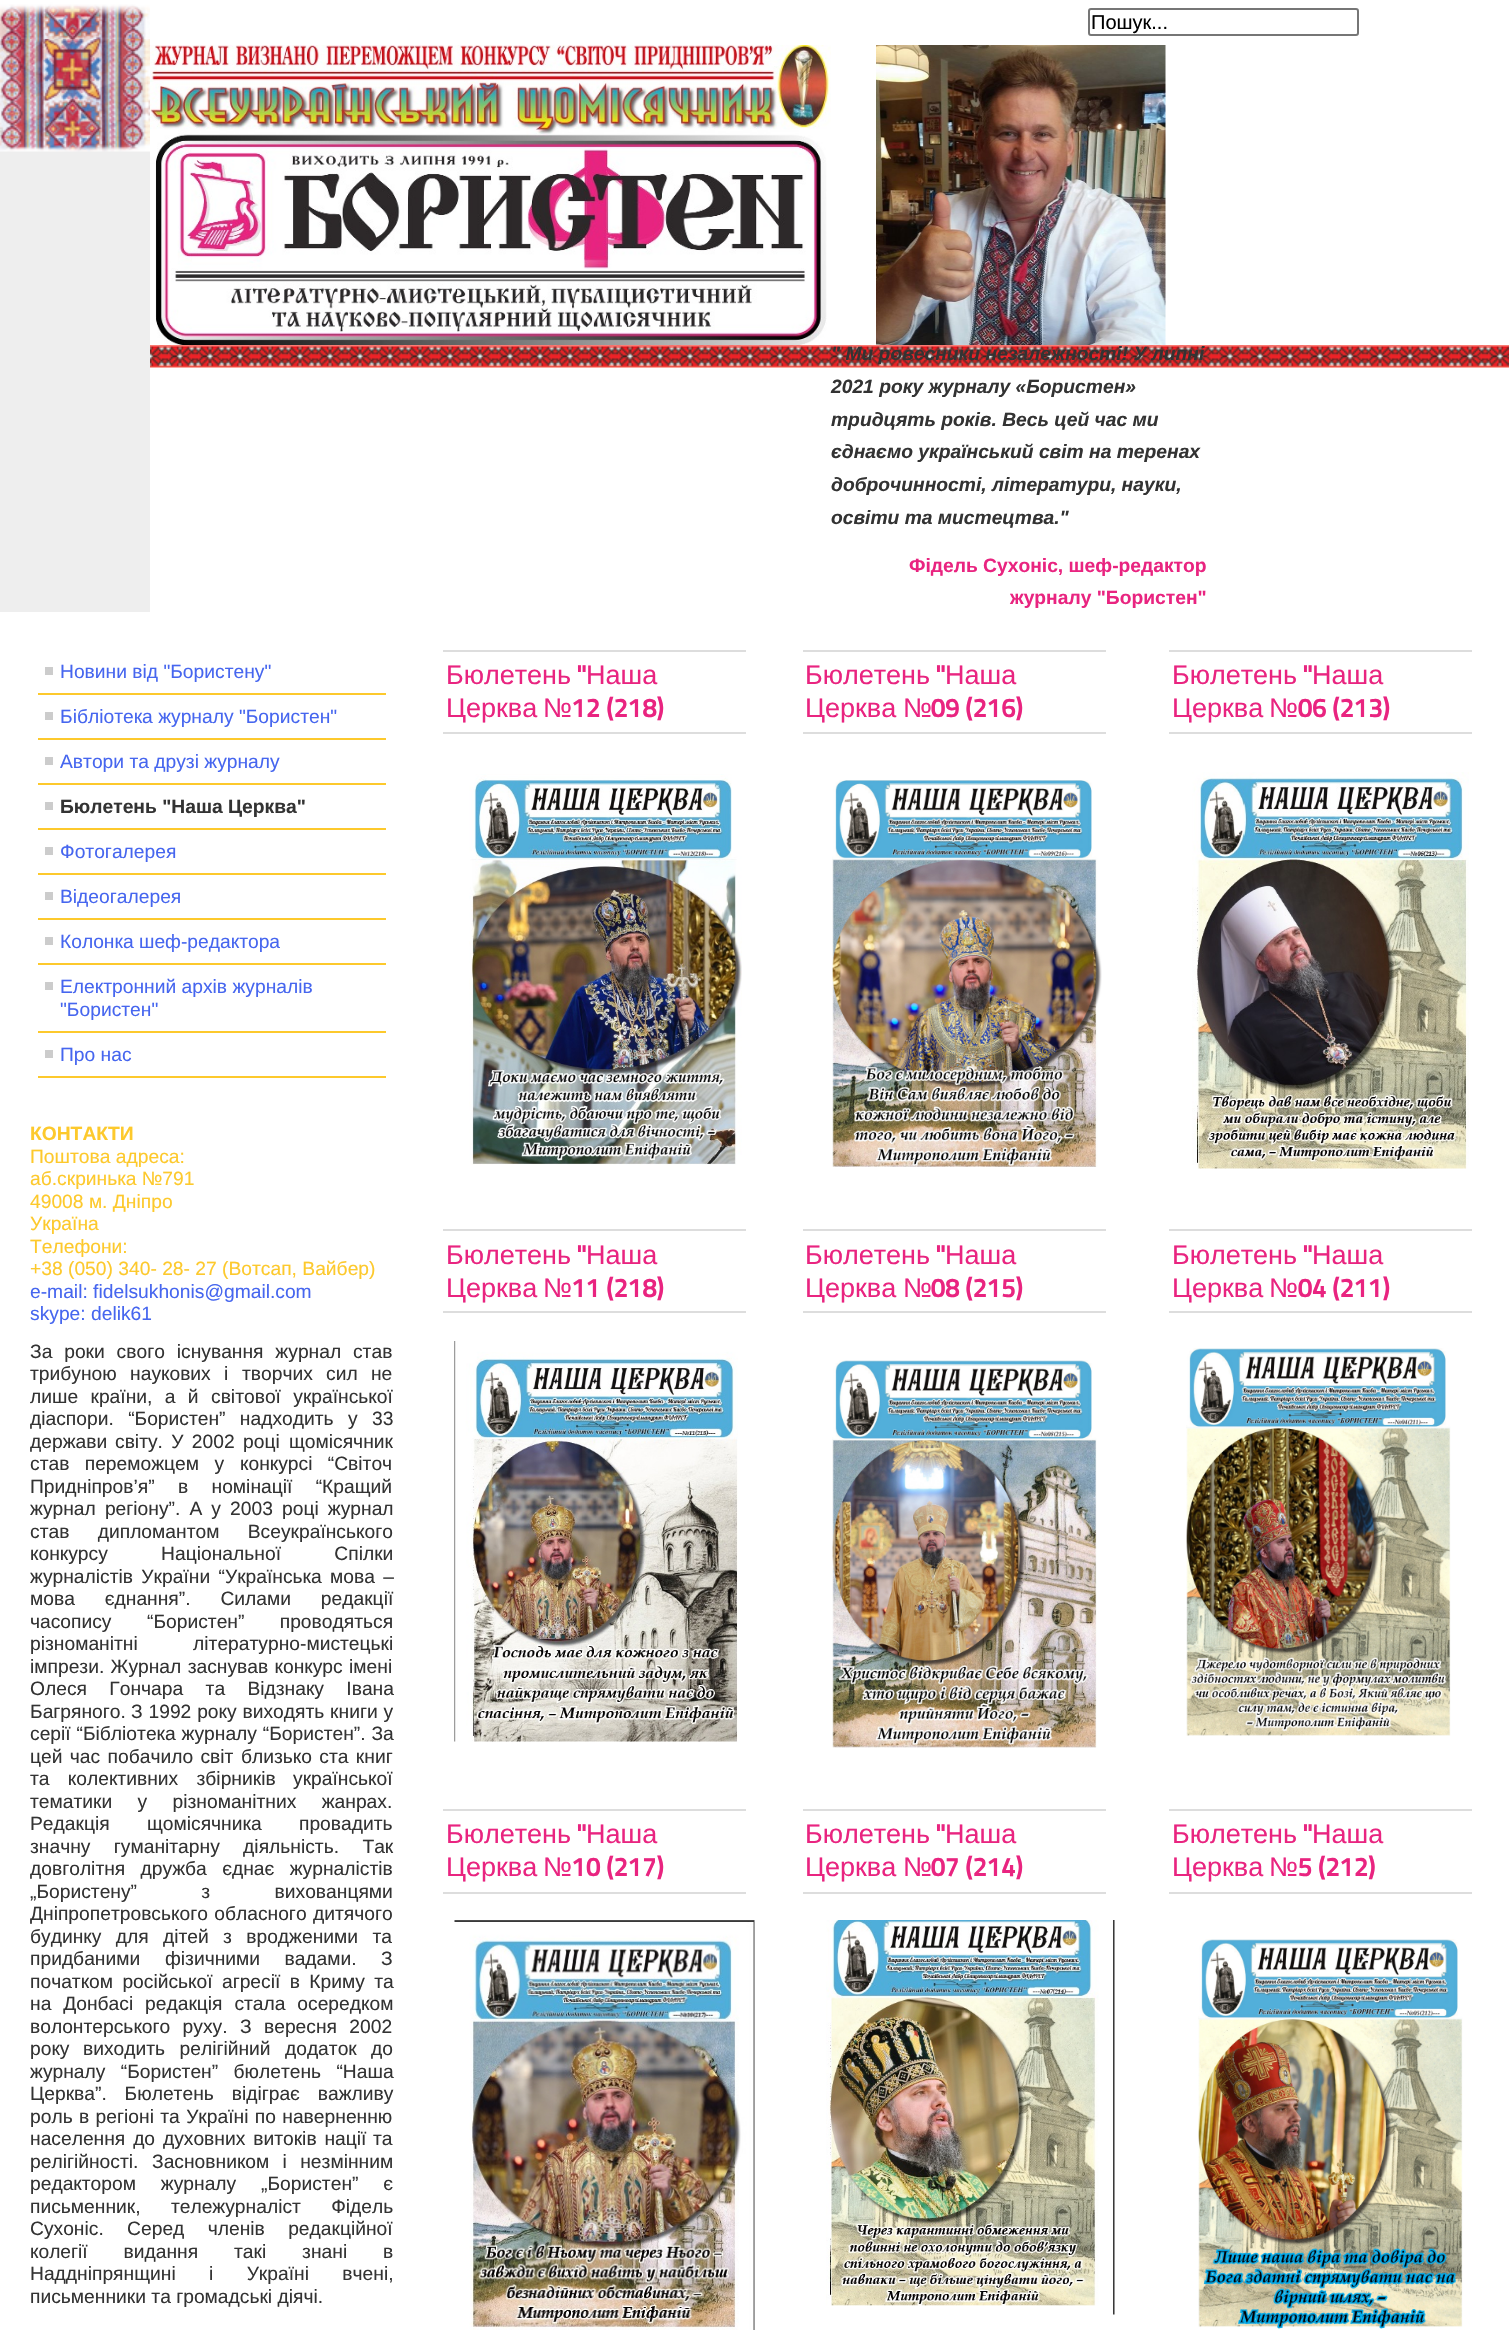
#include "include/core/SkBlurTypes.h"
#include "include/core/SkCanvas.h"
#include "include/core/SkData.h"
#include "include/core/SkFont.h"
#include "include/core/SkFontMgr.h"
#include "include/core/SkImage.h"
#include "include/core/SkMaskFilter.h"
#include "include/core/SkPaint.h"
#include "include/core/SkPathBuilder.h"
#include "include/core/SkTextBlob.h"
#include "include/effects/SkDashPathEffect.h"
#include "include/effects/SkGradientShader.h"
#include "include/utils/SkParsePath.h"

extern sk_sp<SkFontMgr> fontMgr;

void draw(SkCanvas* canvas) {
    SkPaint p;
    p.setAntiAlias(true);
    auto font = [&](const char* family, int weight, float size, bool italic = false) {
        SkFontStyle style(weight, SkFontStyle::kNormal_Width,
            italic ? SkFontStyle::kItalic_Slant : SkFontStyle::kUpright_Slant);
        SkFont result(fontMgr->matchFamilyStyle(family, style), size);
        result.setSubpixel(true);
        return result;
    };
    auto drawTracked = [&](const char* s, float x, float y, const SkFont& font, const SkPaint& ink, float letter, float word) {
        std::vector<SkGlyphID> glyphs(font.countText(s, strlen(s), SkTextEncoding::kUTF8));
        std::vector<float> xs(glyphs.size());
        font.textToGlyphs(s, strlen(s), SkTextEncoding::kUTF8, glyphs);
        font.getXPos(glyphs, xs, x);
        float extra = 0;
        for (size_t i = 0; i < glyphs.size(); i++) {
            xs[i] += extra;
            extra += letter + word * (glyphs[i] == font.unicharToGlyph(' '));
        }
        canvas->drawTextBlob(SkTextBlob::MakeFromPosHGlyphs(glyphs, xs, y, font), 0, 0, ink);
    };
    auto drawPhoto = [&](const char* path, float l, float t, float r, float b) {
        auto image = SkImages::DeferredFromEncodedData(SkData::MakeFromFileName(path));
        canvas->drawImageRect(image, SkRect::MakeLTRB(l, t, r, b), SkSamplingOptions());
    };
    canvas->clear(0xFFEEEEEE);
    p.setColor(0xFFFFFFFF);
    canvas->drawRect(SkRect::MakeLTRB(150, 0, 1509, 612), p);
    p.setStyle(SkPaint::kStroke_Style);
    p.setStrokeWidth(2);
    p.setColor(0xFF767676);
    canvas->drawRoundRect(SkRect::MakeLTRB(1089, 9, 1358, 35), 2, 2, p);
    auto font1 = font("Liberation Sans", 400, 20);
    p.setStyle(SkPaint::kFill_Style);
    p.setColor(0xFF000000);
    canvas->drawString("Пошук...", 1091, 29, font1, p);
    drawPhoto("media/1.png", 0, 0, 150, 39);
    drawPhoto("media/2.png", 0, 39, 150, 152);
    drawPhoto("media/3.png", 150, 345, 1509, 368);
    drawPhoto("media/4.png", 150, 45, 831, 345);
    drawPhoto("media/5.png", 876, 45, 1166, 345);
    auto font2 = font("Liberation Sans", 700, 19.25f, true);
    p.setColor(0xFF333333);
    {
        const struct { const char* s; float x, y; } items[] = {
            {"\" Ми ровесники незалежності! У липні", 831, 360},
            {"2021 року журналу «Бористен»", 831, 393},
            {"тридцять років. Весь цей час ми", 831, 426},
            {"єднаємо український світ на теренах", 831, 458},
            {"доброчинності, літератури, науки,", 831, 491},
            {"освіти та мистецтва.\"", 831, 524},
        };
        for (auto [s, x, y] : items) {
            canvas->drawString(s, x, y, font2, p);
        }
    }
    auto font3 = font("Liberation Sans", 700, 19.25f);
    p.setColor(0xFFE92480);
    canvas->drawString("Фідель Сухоніс, шеф-редактор", 909, 572, font3, p);
    canvas->drawString("журналу \"Бористен\"", 1010, 604, font3, p);
    {
        const struct { float l, t, r, b; SkColor color; } items[] = {
            {0, 612, 1509, 2330, 0xFFFFFFFF},
            {38, 693, 386, 695, 0xFFFDC92C},
            {45, 667, 53, 675, 0xFFCCCCCC},
        };
        for (auto [l, t, r, b, color] : items) {
            p.setColor(color);
            canvas->drawRect(SkRect::MakeLTRB(l, t, r, b), p);
        }
    }
    auto font4 = font("Liberation Sans", 400, 19.25f);
    p.setColor(0xFF4666EF);
    canvas->drawString("Новини від \"Бористену\"", 60, 678, font4, p);
    p.setColor(0xFFFDC92C);
    canvas->drawRect(SkRect::MakeLTRB(38, 738, 386, 740), p);
    p.setColor(0xFFCCCCCC);
    canvas->drawRect(SkRect::MakeLTRB(45, 712, 53, 720), p);
    p.setColor(0xFF4666EF);
    canvas->drawString("Бібліотека журналу \"Бористен\"", 60, 723, font4, p);
    p.setColor(0xFFFDC92C);
    canvas->drawRect(SkRect::MakeLTRB(38, 783, 386, 785), p);
    p.setColor(0xFFCCCCCC);
    canvas->drawRect(SkRect::MakeLTRB(45, 757, 53, 765), p);
    p.setColor(0xFF4666EF);
    canvas->drawString("Автори та друзі журналу", 60, 768, font4, p);
    p.setColor(0xFFFDC92C);
    canvas->drawRect(SkRect::MakeLTRB(38, 828, 386, 830), p);
    p.setColor(0xFFCCCCCC);
    canvas->drawRect(SkRect::MakeLTRB(45, 802, 53, 810), p);
    p.setColor(0xFF333333);
    canvas->drawString("Бюлетень \"Наша Церква\"", 60, 813, font3, p);
    p.setColor(0xFFFDC92C);
    canvas->drawRect(SkRect::MakeLTRB(38, 873, 386, 875), p);
    p.setColor(0xFFCCCCCC);
    canvas->drawRect(SkRect::MakeLTRB(45, 847, 53, 855), p);
    p.setColor(0xFF4666EF);
    canvas->drawString("Фотогалерея", 60, 858, font4, p);
    p.setColor(0xFFFDC92C);
    canvas->drawRect(SkRect::MakeLTRB(38, 918, 386, 920), p);
    p.setColor(0xFFCCCCCC);
    canvas->drawRect(SkRect::MakeLTRB(45, 892, 53, 900), p);
    p.setColor(0xFF4666EF);
    canvas->drawString("Відеогалерея", 60, 903, font4, p);
    p.setColor(0xFFFDC92C);
    canvas->drawRect(SkRect::MakeLTRB(38, 963, 386, 965), p);
    p.setColor(0xFFCCCCCC);
    canvas->drawRect(SkRect::MakeLTRB(45, 937, 53, 945), p);
    p.setColor(0xFF4666EF);
    canvas->drawString("Колонка шеф-редактора", 60, 948, font4, p);
    p.setColor(0xFFFDC92C);
    canvas->drawRect(SkRect::MakeLTRB(38, 1031, 386, 1033), p);
    p.setColor(0xFFCCCCCC);
    canvas->drawRect(SkRect::MakeLTRB(45, 982, 53, 990), p);
    p.setColor(0xFF4666EF);
    canvas->drawString("Електронний архів журналів", 60, 993, font4, p);
    canvas->drawString("\"Бористен\"", 60, 1016, font4, p);
    p.setColor(0xFFFDC92C);
    canvas->drawRect(SkRect::MakeLTRB(38, 1076, 386, 1078), p);
    p.setColor(0xFFCCCCCC);
    canvas->drawRect(SkRect::MakeLTRB(45, 1050, 53, 1058), p);
    p.setColor(0xFF4666EF);
    canvas->drawString("Про нас", 60, 1061, font4, p);
    p.setColor(0xFFFDC92C);
    canvas->drawString("КОНТАКТИ", 30, 1140, font3, p);
    {
        const struct { const char* s; float x, y; } items[] = {
            {"Поштова адреса:", 30, 1163},
            {"аб.скринька №791", 30, 1185},
            {"49008 м. Дніпро", 30, 1208},
            {"Україна", 30, 1230},
            {"Телефони:", 30, 1253},
            {"+38 (050) 340- 28- 27 (Вотсап, Вайбер)", 30, 1275},
        };
        for (auto [s, x, y] : items) {
            canvas->drawString(s, x, y, font4, p);
        }
    }
    p.setColor(0xFF4666EF);
    canvas->drawString("e-mail: fidelsukhonis@gmail.com", 30, 1298, font4, p);
    canvas->drawString("skype: delik61", 30, 1320, font4, p);
    p.setColor(0xFF333333);
    drawTracked("За роки свого існування журнал став", 30, 1358, font4, p, 0, 6.5f);
    drawTracked("трибуною наукових і", 30, 1380, font4, p, 0, 8);
    canvas->drawString("творчих", 242, 1380, font4, p);
    drawTracked("сил не", 326, 1380, font4, p, 0, 8);
    drawTracked("лише країни, а й", 30, 1403, font4, p, 0, 7);
    drawTracked("світової української", 211, 1403, font4, p, 0, 7);
    drawTracked("діаспори. “Бористен” надходить у 33", 30, 1425, font4, p, 0, 9);
    canvas->drawString("держави", 30, 1448, font4, p);
    drawTracked("світу. У 2002 році", 115, 1448, font4, p, 0, 3);
    canvas->drawString("щомісячник", 289, 1448, font4, p);
    drawTracked("став переможцем у", 30, 1470, font4, p, 0, 10);
    drawTracked("конкурсі “Світоч", 240, 1470, font4, p, 0, 10);
    drawTracked("Придніпров’я” в номінації “Кращий", 30, 1493, font4, p, 0, 18);
    drawTracked("журнал регіону”. А у 2003 році журнал", 30, 1515, font4, p, 0, 3.75f);
    drawTracked("став дипломантом Всеукраїнського", 30, 1538, font4, p, 0, 23);
    drawTracked("конкурсу Національної Спілки", 30, 1560, font4, p, 0, 48);
    drawTracked("журналістів України “Українська мова –", 30, 1583, font4, p, 0, 3);
    drawTracked("мова єднання”. Силами редакції", 30, 1605, font4, p, 0, 24.5f);
    canvas->drawString("часопису", 30, 1628, font4, p);
    drawTracked("“Бористен” проводяться", 147, 1628, font4, p, 0, 30);
    drawTracked("різноманітні літературно-мистецькі", 30, 1650, font4, p, 0, 50);
    drawTracked("імпрези. Журнал заснував конкурс імені", 30, 1673, font4, p, 0, 1);
    drawTracked("Олеся Гончара та Відзнаку Івана", 30, 1695, font4, p, 0, 17);
    canvas->drawString("Багряного.", 30, 1718, font4, p);
    drawTracked("З 1992 року виходять книги у", 131, 1718, font4, p, 0, 0.5f);
    drawTracked("серії “Бібліотека журналу “Бористен”. За", 30, 1740, font4, p, 0, 0.5f);
    drawTracked("цей час побачило світ", 30, 1763, font4, p, 0, 2);
    drawTracked("близько ста книг", 241, 1763, font4, p, 0, 2);
    drawTracked("та колективних збірників", 30, 1785, font4, p, 0, 13);
    canvas->drawString("української", 293, 1785, font4, p);
    drawTracked("тематики у різноманітних жанрах.", 30, 1808, font4, p, 0, 20);
    drawTracked("Редакція щомісячника провадить", 30, 1830, font4, p, 0, 32);
    drawTracked("значну гуманітарну діяльність. Так", 30, 1853, font4, p, 0, 18);
    drawTracked("довголітня дружба єднає журналістів", 30, 1875, font4, p, 0, 10);
    drawTracked("„Бористену” з вихованцями", 30, 1898, font4, p, 0, 59);
    drawTracked("Дніпропетровського обласного дитячого", 30, 1920, font4, p, 0, 1);
    drawTracked("будинку для дітей з вродженими та", 30, 1943, font4, p, 0, 9);
    canvas->drawString("придбаними", 30, 1965, font4, p);
    drawTracked("фізичними вадами.", 165, 1965, font4, p, 0, 19);
    canvas->drawString("З", 381, 1965, font4, p);
    drawTracked("початком російської агресії в Криму та", 30, 1988, font4, p, 0, 4);
    drawTracked("на Донбасі редакція стала осередком", 30, 2010, font4, p, 0, 6.5f);
    drawTracked("волонтерського руху.", 30, 2033, font4, p, 0, 7);
    drawTracked("З вересня 2002", 240, 2033, font4, p, 0, 7);
    canvas->drawString("року", 30, 2055, font4, p);
    drawTracked("виходить релігійний додаток до", 83, 2055, font4, p, 0, 9);
    drawTracked("журналу “Бористен” бюлетень “Наша", 30, 2078, font4, p, 0, 10);
    drawTracked("Церква”. Бюлетень відіграє важливу", 30, 2100, font4, p, 0, 12.5f);
    drawTracked("роль в регіоні та Україні по наверненню", 30, 2123, font4, p, 0, 1);
    drawTracked("населення до духовних витоків нації", 30, 2145, font4, p, 0, 2.5f);
    canvas->drawString("та", 373, 2145, font4, p);
    canvas->drawString("релігійності.", 30, 2168, font4, p);
    drawTracked("Засновником і незмінним", 152, 2168, font4, p, 0, 8);
    drawTracked("редактором журналу „Бористен” є", 30, 2190, font4, p, 0, 19.5f);
    drawTracked("письменник, тележурналіст Фідель", 30, 2213, font4, p, 0, 25);
    drawTracked("Сухоніс. Серед членів редакційної", 30, 2235, font4, p, 0, 18);
    drawTracked("колегії видання такі знані в", 30, 2258, font4, p, 0, 30.5f);
    drawTracked("Наддніпрянщині і Україні вчені,", 30, 2280, font4, p, 0, 28);
    canvas->drawString("письменники та громадські діячі.", 30, 2303, font4, p);
    p.setColor(0xFFDDDDDD);
    canvas->drawRect(SkRect::MakeLTRB(443, 650, 746, 652), p);
    canvas->drawRect(SkRect::MakeLTRB(443, 732, 746, 734), p);
    auto font5 = font("Liberation Sans", 400, 27);
    p.setColor(0xFFE92480);
    canvas->drawString("Бюлетень", 446, 684, font5, p);
    auto font6 = font("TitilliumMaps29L", 800, 27);
    canvas->drawString("\"", 577, 684, font6, p);
    {
        const struct { const char* s; float x, y; } items[] = {
            {"Наша", 586, 684},
            {"Церква", 446, 717},
            {"№", 543, 717},
        };
        for (auto [s, x, y] : items) {
            canvas->drawString(s, x, y, font5, p);
        }
    }
    canvas->drawString("12 (218)", 572, 717, font6, p);
    drawPhoto("media/6.png", 469, 774, 742, 1165);
    p.setColor(0xFFDDDDDD);
    canvas->drawRect(SkRect::MakeLTRB(803, 650, 1106, 652), p);
    canvas->drawRect(SkRect::MakeLTRB(803, 732, 1106, 734), p);
    p.setColor(0xFFE92480);
    canvas->drawString("Бюлетень", 805, 684, font5, p);
    canvas->drawString("\"", 936, 684, font6, p);
    {
        const struct { const char* s; float x, y; } items[] = {
            {"Наша", 945, 684},
            {"Церква", 805, 717},
            {"№", 903, 717},
        };
        for (auto [s, x, y] : items) {
            canvas->drawString(s, x, y, font5, p);
        }
    }
    canvas->drawString("09 (216)", 931, 717, font6, p);
    drawPhoto("media/7.png", 832, 780, 1102, 1167);
    p.setColor(0xFFDDDDDD);
    canvas->drawRect(SkRect::MakeLTRB(1169, 650, 1472, 652), p);
    canvas->drawRect(SkRect::MakeLTRB(1169, 732, 1472, 734), p);
    p.setColor(0xFFE92480);
    canvas->drawString("Бюлетень", 1172, 684, font5, p);
    canvas->drawString("\"", 1303, 684, font6, p);
    {
        const struct { const char* s; float x, y; } items[] = {
            {"Наша", 1312, 684},
            {"Церква", 1172, 717},
            {"№", 1269, 717},
        };
        for (auto [s, x, y] : items) {
            canvas->drawString(s, x, y, font5, p);
        }
    }
    canvas->drawString("06 (213)", 1298, 717, font6, p);
    drawPhoto("media/8.png", 1192, 772, 1469, 1169);
    p.setColor(0xFFDDDDDD);
    canvas->drawRect(SkRect::MakeLTRB(443, 1229, 746, 1231), p);
    canvas->drawRect(SkRect::MakeLTRB(443, 1311, 746, 1313), p);
    p.setColor(0xFFE92480);
    canvas->drawString("Бюлетень", 446, 1264, font5, p);
    canvas->drawString("\"", 577, 1264, font6, p);
    {
        const struct { const char* s; float x, y; } items[] = {
            {"Наша", 586, 1264},
            {"Церква", 446, 1297},
            {"№", 543, 1297},
        };
        for (auto [s, x, y] : items) {
            canvas->drawString(s, x, y, font5, p);
        }
    }
    canvas->drawString("11 (218)", 572, 1297, font6, p);
    drawPhoto("media/9.png", 454, 1341, 738, 1742);
    p.setColor(0xFFDDDDDD);
    canvas->drawRect(SkRect::MakeLTRB(803, 1229, 1106, 1231), p);
    canvas->drawRect(SkRect::MakeLTRB(803, 1311, 1106, 1313), p);
    p.setColor(0xFFE92480);
    canvas->drawString("Бюлетень", 805, 1264, font5, p);
    canvas->drawString("\"", 936, 1264, font6, p);
    {
        const struct { const char* s; float x, y; } items[] = {
            {"Наша", 945, 1264},
            {"Церква", 805, 1297},
            {"№", 903, 1297},
        };
        for (auto [s, x, y] : items) {
            canvas->drawString(s, x, y, font5, p);
        }
    }
    canvas->drawString("08 (215)", 931, 1297, font6, p);
    drawPhoto("media/10.png", 832, 1360, 1097, 1748);
    p.setColor(0xFFDDDDDD);
    canvas->drawRect(SkRect::MakeLTRB(1169, 1229, 1472, 1231), p);
    canvas->drawRect(SkRect::MakeLTRB(1169, 1311, 1472, 1313), p);
    p.setColor(0xFFE92480);
    canvas->drawString("Бюлетень", 1172, 1264, font5, p);
    canvas->drawString("\"", 1303, 1264, font6, p);
    {
        const struct { const char* s; float x, y; } items[] = {
            {"Наша", 1312, 1264},
            {"Церква", 1172, 1297},
            {"№", 1269, 1297},
        };
        for (auto [s, x, y] : items) {
            canvas->drawString(s, x, y, font5, p);
        }
    }
    canvas->drawString("04 (211)", 1298, 1297, font6, p);
    drawPhoto("media/11.png", 1186, 1348, 1451, 1736);
    p.setColor(0xFFDDDDDD);
    canvas->drawRect(SkRect::MakeLTRB(443, 1809, 746, 1811), p);
    canvas->drawRect(SkRect::MakeLTRB(443, 1892, 746, 1894), p);
    p.setColor(0xFFE92480);
    canvas->drawString("Бюлетень", 446, 1843, font5, p);
    canvas->drawString("\"", 577, 1843, font6, p);
    {
        const struct { const char* s; float x, y; } items[] = {
            {"Наша", 586, 1843},
            {"Церква", 446, 1876},
            {"№", 543, 1876},
        };
        for (auto [s, x, y] : items) {
            canvas->drawString(s, x, y, font5, p);
        }
    }
    canvas->drawString("10 (217)", 572, 1876, font6, p);
    drawPhoto("media/12.png", 454, 1920, 755, 2330);
    p.setColor(0xFFDDDDDD);
    canvas->drawRect(SkRect::MakeLTRB(803, 1809, 1106, 1811), p);
    canvas->drawRect(SkRect::MakeLTRB(803, 1892, 1106, 1894), p);
    p.setColor(0xFFE92480);
    canvas->drawString("Бюлетень", 805, 1843, font5, p);
    canvas->drawString("\"", 936, 1843, font6, p);
    {
        const struct { const char* s; float x, y; } items[] = {
            {"Наша", 945, 1843},
            {"Церква", 805, 1876},
            {"№", 903, 1876},
        };
        for (auto [s, x, y] : items) {
            canvas->drawString(s, x, y, font5, p);
        }
    }
    canvas->drawString("07 (214)", 931, 1876, font6, p);
    drawPhoto("media/13.png", 826, 1920, 1115, 2315);
    p.setColor(0xFFDDDDDD);
    canvas->drawRect(SkRect::MakeLTRB(1169, 1809, 1472, 1811), p);
    canvas->drawRect(SkRect::MakeLTRB(1169, 1892, 1472, 1894), p);
    p.setColor(0xFFE92480);
    canvas->drawString("Бюлетень", 1172, 1843, font5, p);
    canvas->drawString("\"", 1303, 1843, font6, p);
    {
        const struct { const char* s; float x, y; } items[] = {
            {"Наша", 1312, 1843},
            {"Церква", 1172, 1876},
            {"№", 1269, 1876},
        };
        for (auto [s, x, y] : items) {
            canvas->drawString(s, x, y, font5, p);
        }
    }
    canvas->drawString("5 (212)", 1298, 1876, font6, p);
    drawPhoto("media/14.png", 1198, 1939, 1463, 2329);
}
